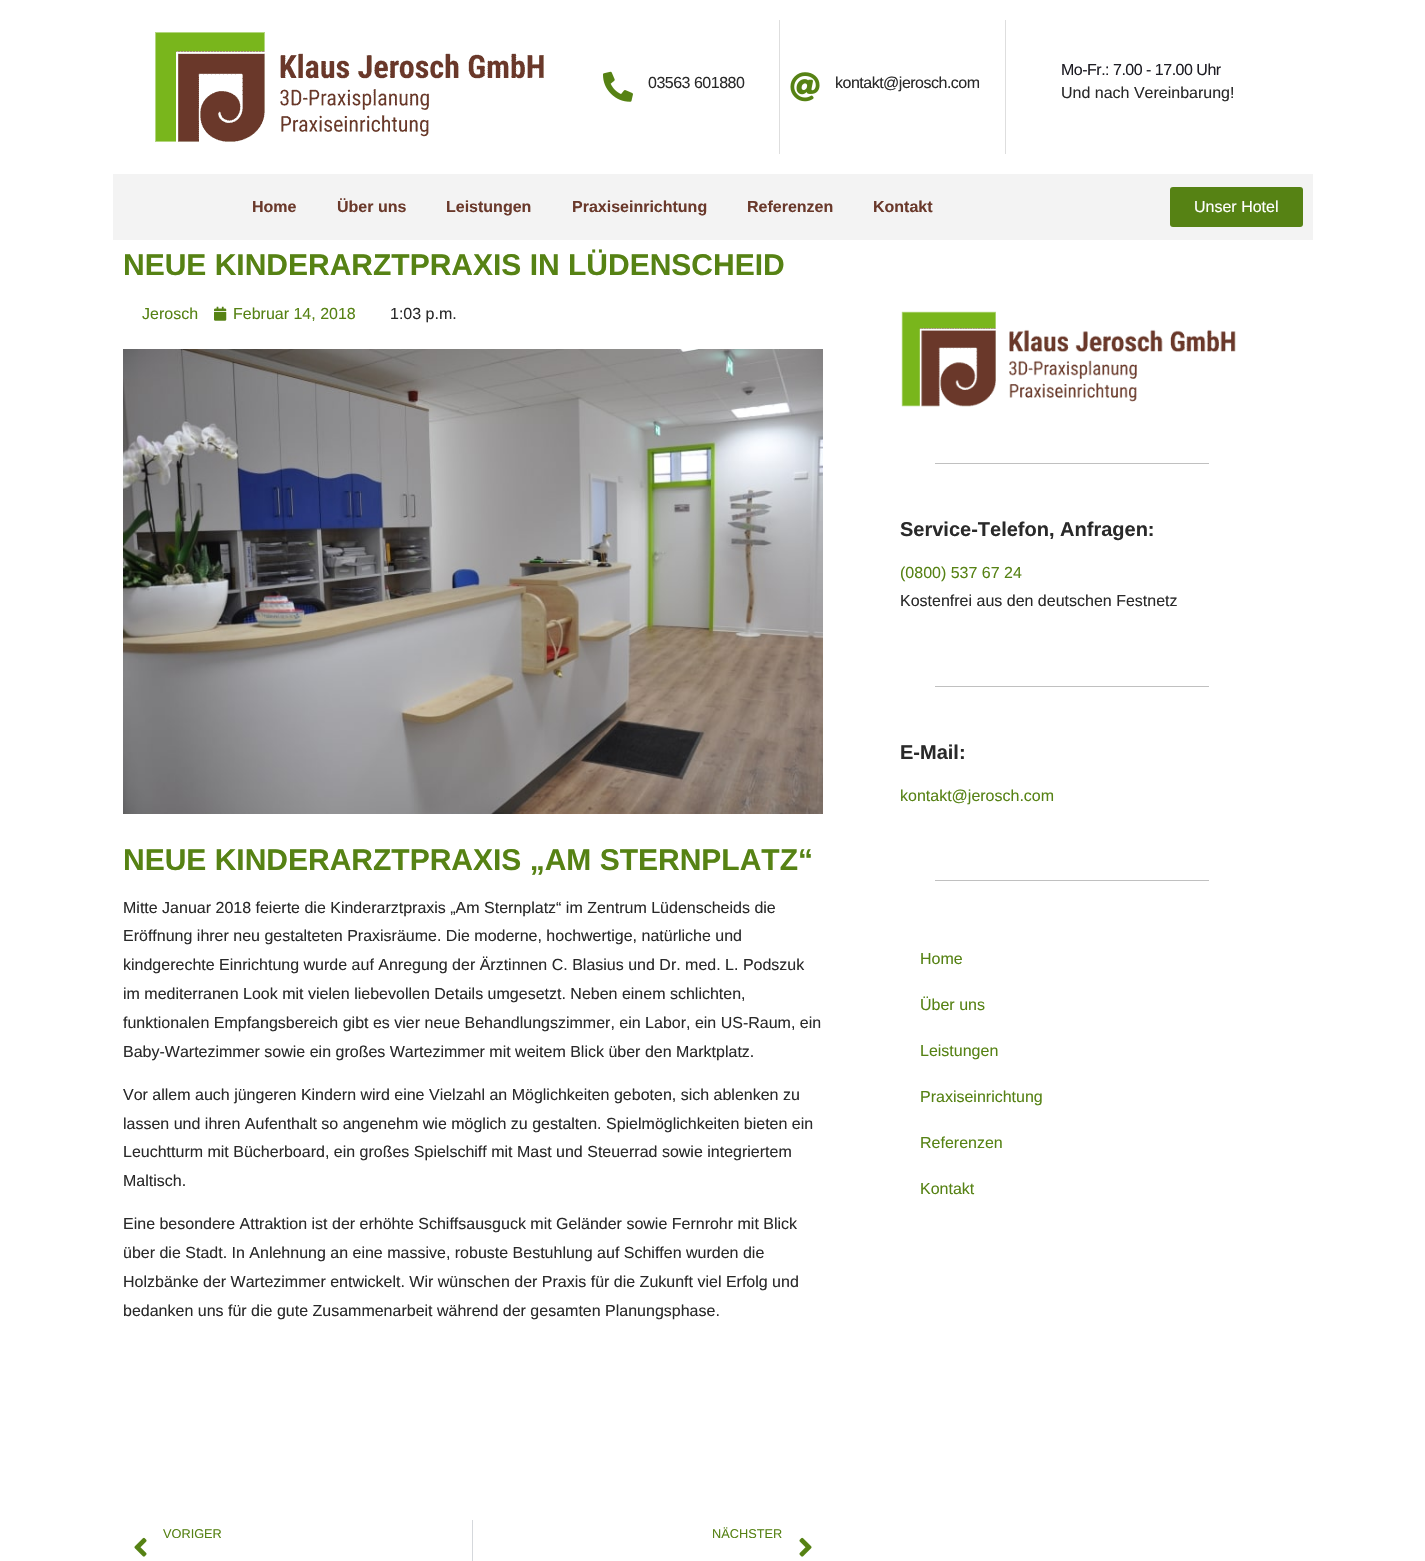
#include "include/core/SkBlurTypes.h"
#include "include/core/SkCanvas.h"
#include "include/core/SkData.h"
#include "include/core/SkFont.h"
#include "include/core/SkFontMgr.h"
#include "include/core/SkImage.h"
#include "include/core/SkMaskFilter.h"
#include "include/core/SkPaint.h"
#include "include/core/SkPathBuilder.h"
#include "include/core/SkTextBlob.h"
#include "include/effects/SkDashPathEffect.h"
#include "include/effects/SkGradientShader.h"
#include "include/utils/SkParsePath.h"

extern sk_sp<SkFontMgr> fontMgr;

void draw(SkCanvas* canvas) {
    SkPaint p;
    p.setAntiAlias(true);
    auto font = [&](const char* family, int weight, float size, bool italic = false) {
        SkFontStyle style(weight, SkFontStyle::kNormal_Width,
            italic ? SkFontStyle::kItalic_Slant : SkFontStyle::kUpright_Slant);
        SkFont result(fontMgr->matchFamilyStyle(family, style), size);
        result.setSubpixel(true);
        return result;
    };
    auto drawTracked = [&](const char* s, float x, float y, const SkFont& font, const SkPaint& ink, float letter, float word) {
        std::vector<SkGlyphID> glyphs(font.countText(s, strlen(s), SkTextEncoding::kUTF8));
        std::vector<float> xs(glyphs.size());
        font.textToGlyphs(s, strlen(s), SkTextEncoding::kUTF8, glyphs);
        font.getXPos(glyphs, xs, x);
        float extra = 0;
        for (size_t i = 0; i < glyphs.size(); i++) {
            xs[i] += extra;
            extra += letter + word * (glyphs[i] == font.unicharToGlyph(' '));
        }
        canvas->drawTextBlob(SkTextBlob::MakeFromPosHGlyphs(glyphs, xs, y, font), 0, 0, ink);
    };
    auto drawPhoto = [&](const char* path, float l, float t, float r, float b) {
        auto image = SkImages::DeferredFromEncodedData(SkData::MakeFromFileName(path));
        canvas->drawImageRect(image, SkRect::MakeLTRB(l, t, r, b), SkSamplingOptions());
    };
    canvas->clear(0xFFFFFFFF);
    drawPhoto("media/1.png", 155, 32, 544, 142);
    drawPhoto("media/2.png", 603, 71, 633, 102);
    auto font1 = font("Liberation Sans", 400, 16);
    p.setColor(0xFF2A2A2A);
    drawTracked("03563 601880", 648, 88, font1, p, -0.5f, 0);
    p.setColor(0xFFDEDEDE);
    canvas->drawRect(SkRect::MakeLTRB(1005, 20, 1006, 154), p);
    canvas->drawRect(SkRect::MakeLTRB(779, 20, 780, 154), p);
    drawPhoto("media/3.png", 790, 72, 820, 102);
    p.setColor(0xFF2A2A2A);
    drawTracked("kontakt@jerosch.com", 835, 88, font1, p, -0.5f, 0);
    p.setColor(0xFF1E1D24);
    drawTracked("Mo-Fr.: 7.00 - 17.00 Uhr", 1061, 75, font1, p, -0.5f, 0);
    p.setColor(0xFF2A2A2A);
    canvas->drawString("Und nach Vereinbarung!", 1061, 98, font1, p);
    p.setColor(0xFFF3F3F3);
    canvas->drawRect(SkRect::MakeLTRB(113, 174, 1313, 240), p);
    auto font2 = font("Liberation Sans", 700, 16);
    p.setColor(0xFF6A392B);
    {
        const struct { const char* s; float x, y; } items[] = {
            {"Home", 252, 212},
            {"Über uns", 337, 212},
            {"Leistungen", 446, 212},
            {"Praxiseinrichtung", 572, 212},
            {"Referenzen", 747, 212},
            {"Kontakt", 873, 212},
        };
        for (auto [s, x, y] : items) {
            canvas->drawString(s, x, y, font2, p);
        }
    }
    p.setColor(0xFF568214);
    canvas->drawRoundRect(SkRect::MakeLTRB(1170, 187, 1303, 227), 3, 3, p);
    p.setColor(0xFFFFFFFF);
    canvas->drawString("Unser Hotel", 1194, 212, font1, p);
    auto font3 = font("Liberation Sans", 700, 30);
    p.setColor(0xFF568214);
    canvas->drawString("NEUE KINDERARZTPRAXIS IN LÜDENSCHEID", 123, 275, font3, p);
    canvas->drawString("Jerosch", 142, 319, font1, p);
    drawPhoto("media/4.png", 214, 306, 227, 321);
    canvas->drawString("Februar 14, 2018", 233, 319, font1, p);
    p.setColor(0xFF2A2A2A);
    canvas->drawString("1:03 p.m.", 390, 319, font1, p);
    drawPhoto("media/5.png", 123, 349, 823, 814);
    p.setColor(0xFF568214);
    canvas->drawString("NEUE KINDERARZTPRAXIS „AM STERNPLATZ“", 123, 870, font3, p);
    p.setColor(0xFF2A2A2A);
    {
        const struct { const char* s; float x, y; } items[] = {
            {"Mitte Januar 2018 feierte die Kinderarztpraxis „Am Sternplatz“ im Zentrum Lüdenscheids die", 123, 913},
            {"Eröffnung ihrer neu gestalteten Praxisräume. Die moderne, hochwertige, natürliche und", 123, 941},
            {"kindgerechte Einrichtung wurde auf Anregung der Ärztinnen C. Blasius und Dr. med. L. Podszuk", 123, 970},
            {"im mediterranen Look mit vielen liebevollen Details umgesetzt. Neben einem schlichten,", 123, 999},
            {"funktionalen Empfangsbereich gibt es vier neue Behandlungszimmer, ein Labor, ein US-Raum, ein", 123, 1028},
            {"Baby-Wartezimmer sowie ein großes Wartezimmer mit weitem Blick über den Marktplatz.", 123, 1057},
            {"Vor allem auch jüngeren Kindern wird eine Vielzahl an Möglichkeiten geboten, sich ablenken zu", 123, 1100},
            {"lassen und ihren Aufenthalt so angenehm wie möglich zu gestalten. Spielmöglichkeiten bieten ein", 123, 1129},
            {"Leuchtturm mit Bücherboard, ein großes Spielschiff mit Mast und Steuerrad sowie integriertem", 123, 1157},
            {"Maltisch.", 123, 1186},
            {"Eine besondere Attraktion ist der erhöhte Schiffsausguck mit Geländer sowie Fernrohr mit Blick", 123, 1229},
            {"über die Stadt. In Anlehnung an eine massive, robuste Bestuhlung auf Schiffen wurden die", 123, 1258},
            {"Holzbänke der Wartezimmer entwickelt. Wir wünschen der Praxis für die Zukunft viel Erfolg und", 123, 1287},
            {"bedanken uns für die gute Zusammenarbeit während der gesamten Planungsphase.", 123, 1316},
        };
        for (auto [s, x, y] : items) {
            canvas->drawString(s, x, y, font1, p);
        }
    }
    auto font4 = font("Liberation Sans", 400, 12.75f);
    p.setColor(0xFF568214);
    canvas->drawString("VORIGER", 163, 1538, font4, p);
    drawPhoto("media/6.png", 134, 1537, 147, 1557);
    p.setColor(0xFFD5D8DC);
    canvas->drawRect(SkRect::MakeLTRB(472, 1520, 473, 1561), p);
    p.setColor(0xFF568214);
    canvas->drawString("NÄCHSTER", 712, 1538, font4, p);
    drawPhoto("media/7.png", 799, 1537, 812, 1557);
    drawPhoto("media/8.png", 901, 311, 1236, 407);
    p.setColor(0xFFC0C0C0);
    canvas->drawRect(SkRect::MakeLTRB(935, 463, 1209, 464), p);
    auto font5 = font("Liberation Sans", 700, 20);
    p.setColor(0xFF2A2A2A);
    canvas->drawString("Service-Telefon, Anfragen:", 900, 536, font5, p);
    p.setColor(0xFF568214);
    canvas->drawString("(0800) 537 67 24", 900, 578, font1, p);
    p.setColor(0xFF2A2A2A);
    canvas->drawString("Kostenfrei aus den deutschen Festnetz", 900, 606, font1, p);
    p.setColor(0xFFC0C0C0);
    canvas->drawRect(SkRect::MakeLTRB(935, 686, 1209, 687), p);
    p.setColor(0xFF2A2A2A);
    canvas->drawString("E-Mail:", 900, 759, font5, p);
    p.setColor(0xFF568214);
    canvas->drawString("kontakt@jerosch.com", 900, 801, font1, p);
    p.setColor(0xFFC0C0C0);
    canvas->drawRect(SkRect::MakeLTRB(935, 880, 1209, 881), p);
    p.setColor(0xFF568214);
    {
        const struct { const char* s; float x, y; } items[] = {
            {"Home", 920, 964},
            {"Über uns", 920, 1010},
            {"Leistungen", 920, 1056},
            {"Praxiseinrichtung", 920, 1102},
            {"Referenzen", 920, 1148},
            {"Kontakt", 920, 1194},
        };
        for (auto [s, x, y] : items) {
            canvas->drawString(s, x, y, font1, p);
        }
    }
}
